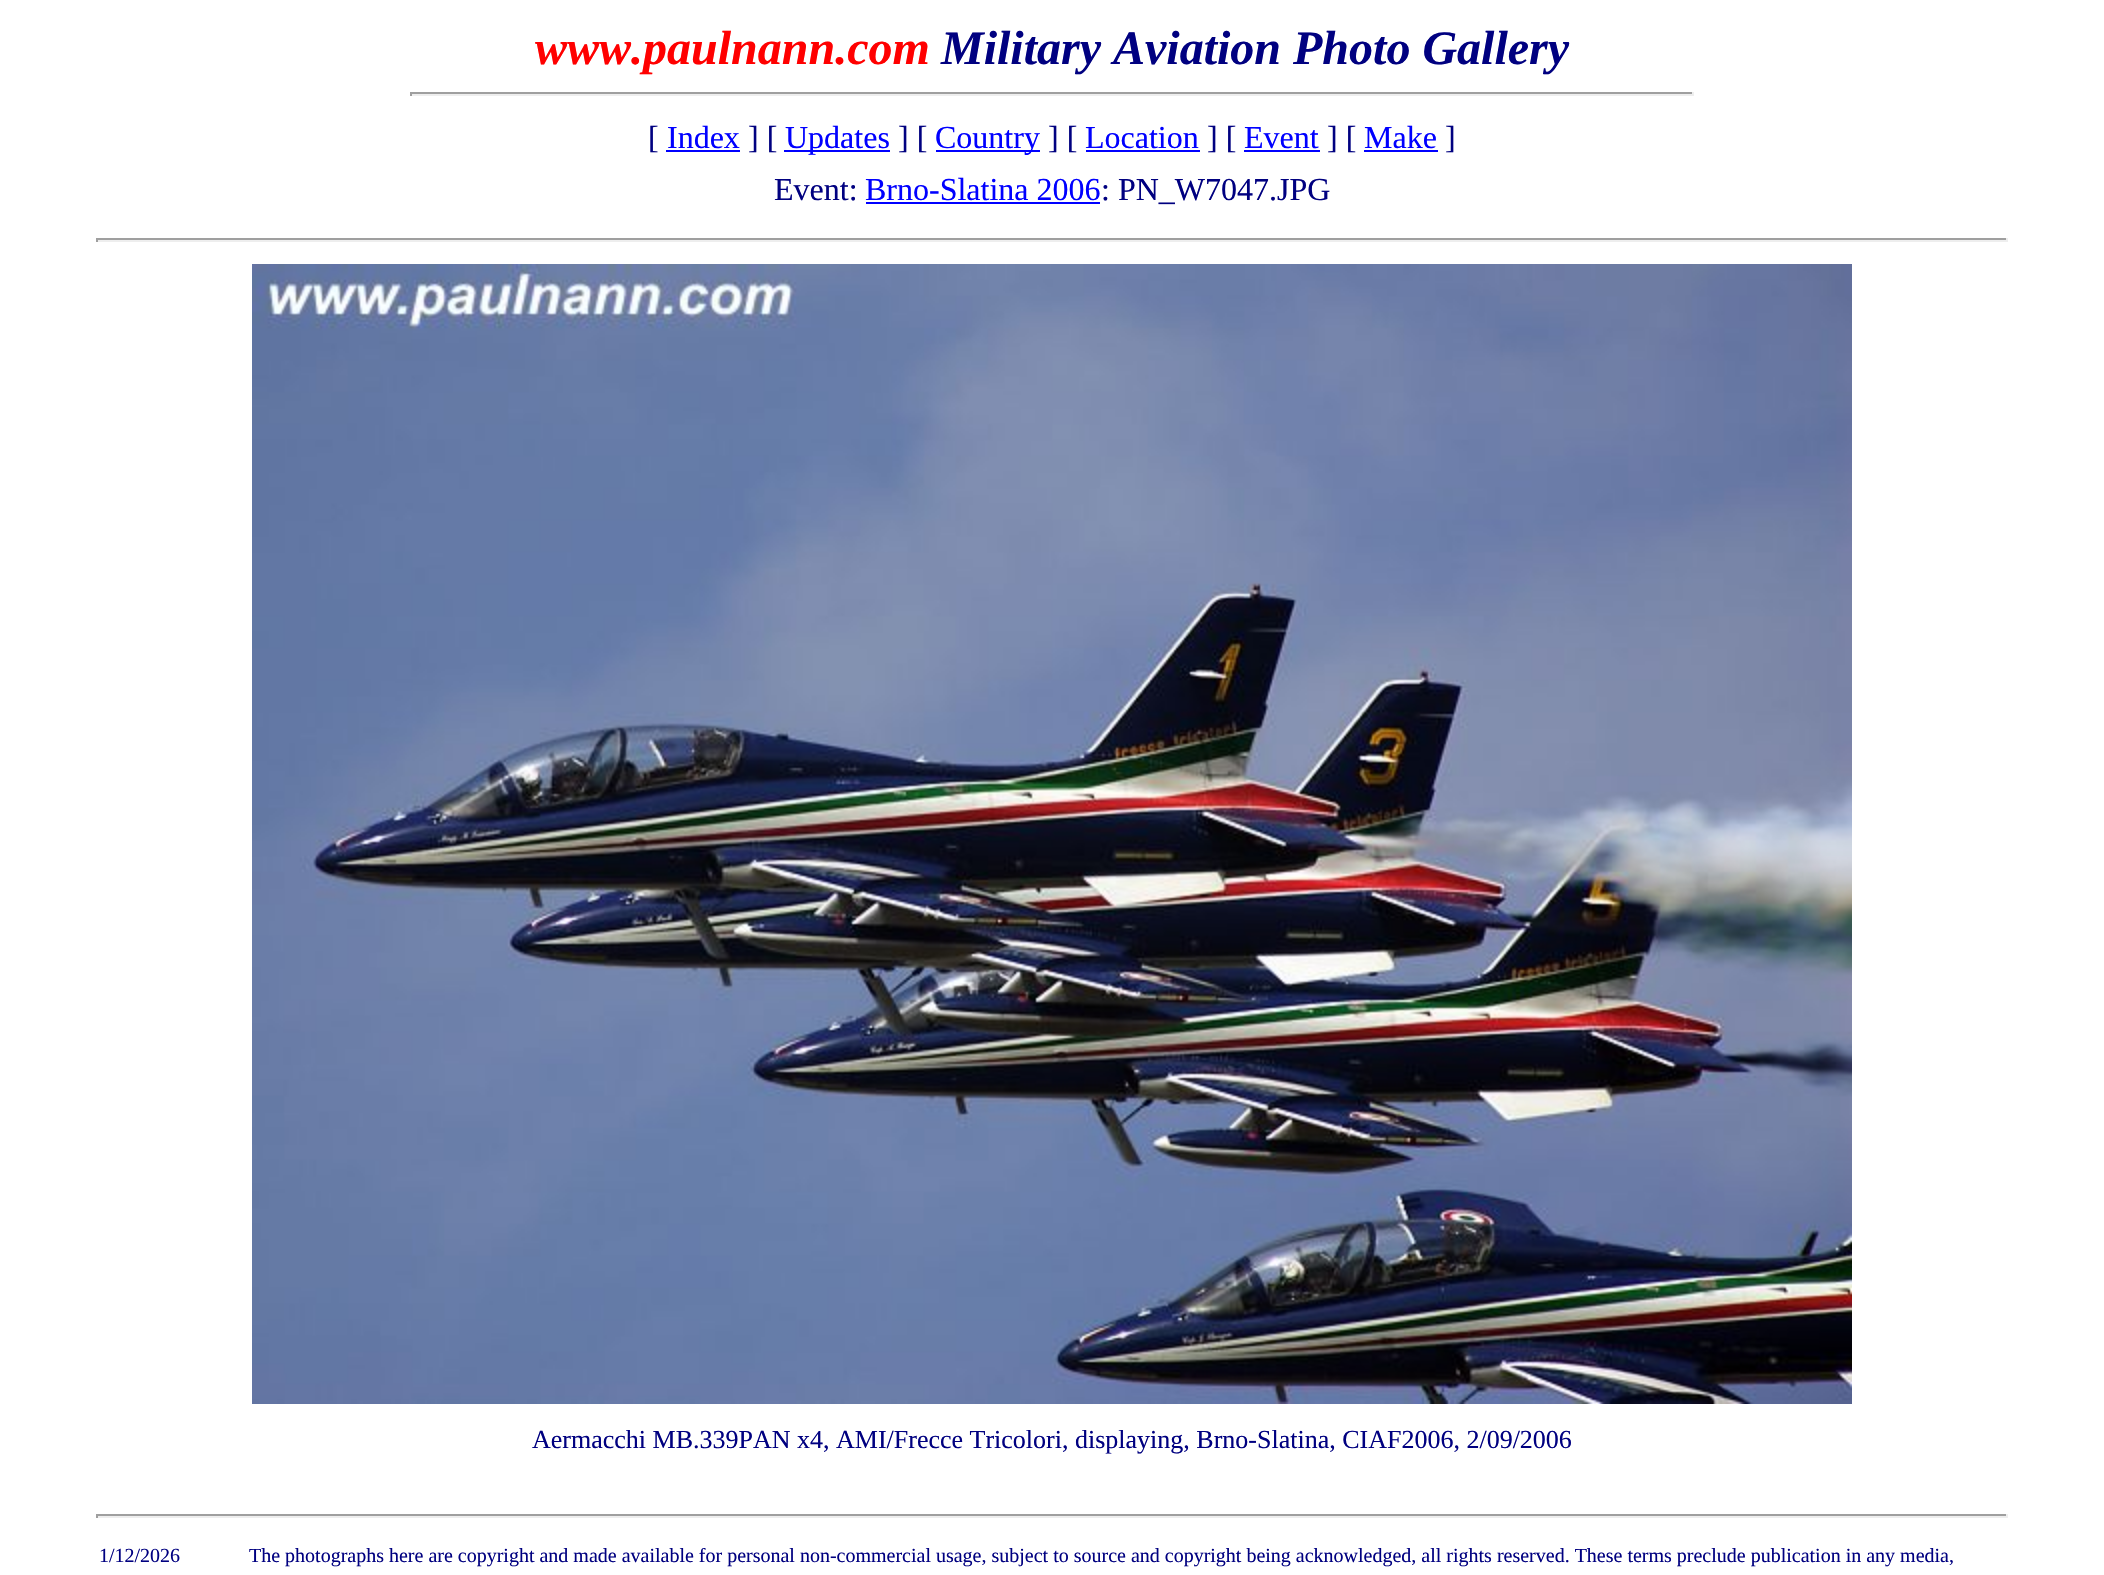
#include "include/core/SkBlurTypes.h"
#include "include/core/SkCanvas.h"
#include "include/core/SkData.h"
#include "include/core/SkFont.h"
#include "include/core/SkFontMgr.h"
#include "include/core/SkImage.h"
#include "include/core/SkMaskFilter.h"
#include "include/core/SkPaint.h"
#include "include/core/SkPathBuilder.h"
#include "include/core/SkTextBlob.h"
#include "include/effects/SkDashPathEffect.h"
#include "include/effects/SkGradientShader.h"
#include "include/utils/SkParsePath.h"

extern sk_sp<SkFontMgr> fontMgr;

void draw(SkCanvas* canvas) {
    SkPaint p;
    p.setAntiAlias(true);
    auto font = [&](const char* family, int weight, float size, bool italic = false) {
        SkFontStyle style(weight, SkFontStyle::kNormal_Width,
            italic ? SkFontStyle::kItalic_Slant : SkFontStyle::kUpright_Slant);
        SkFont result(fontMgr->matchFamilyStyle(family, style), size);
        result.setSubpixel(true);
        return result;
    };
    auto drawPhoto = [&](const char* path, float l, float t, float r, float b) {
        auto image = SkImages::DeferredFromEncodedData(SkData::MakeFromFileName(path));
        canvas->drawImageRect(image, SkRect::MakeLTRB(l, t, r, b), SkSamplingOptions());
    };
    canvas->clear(0xFFFFFFFF);
    auto font1 = font("Liberation Serif", 700, 48, true);
    p.setColor(0xFFFF0000);
    canvas->drawString("www.paulnann.com", 535, 64, font1, p);
    p.setColor(0xFF000080);
    canvas->drawString("Military Aviation Photo Gallery", 941, 64, font1, p);
    {
        const struct { float l, t, r, b; SkColor color; } items[] = {
            {410, 92, 1694, 94, 0xFF9F9F9F},
            {1692, 92, 1694, 96, 0xFFEEEEEE},
            {410, 94, 1694, 96, 0xFFEEEEEE},
            {410, 92, 412, 96, 0xFF9F9F9F},
        };
        for (auto [l, t, r, b, color] : items) {
            p.setColor(color);
            canvas->drawRect(SkRect::MakeLTRB(l, t, r, b), p);
        }
    }
    auto font2 = font("Liberation Serif", 400, 32);
    p.setColor(0xFF000080);
    canvas->drawString("[", 648, 148, font2, p);
    p.setColor(0xFF0000FF);
    canvas->drawString("Index", 667, 148, font2, p);
    canvas->drawRect(SkRect::MakeLTRB(666, 150, 740, 152), p);
    p.setColor(0xFF000080);
    canvas->drawString("] [", 748, 148, font2, p);
    p.setColor(0xFF0000FF);
    canvas->drawRect(SkRect::MakeLTRB(784, 150, 890, 152), p);
    canvas->drawString("Updates", 785, 148, font2, p);
    p.setColor(0xFF000080);
    canvas->drawString("] [", 898, 148, font2, p);
    p.setColor(0xFF0000FF);
    canvas->drawRect(SkRect::MakeLTRB(936, 150, 1040, 152), p);
    canvas->drawString("Country", 935, 148, font2, p);
    p.setColor(0xFF000080);
    canvas->drawString("] [", 1048, 148, font2, p);
    p.setColor(0xFF0000FF);
    canvas->drawString("Location", 1085, 148, font2, p);
    canvas->drawRect(SkRect::MakeLTRB(1086, 150, 1200, 152), p);
    p.setColor(0xFF000080);
    canvas->drawString("] [", 1207, 148, font2, p);
    p.setColor(0xFF0000FF);
    canvas->drawString("Event", 1244, 148, font2, p);
    canvas->drawRect(SkRect::MakeLTRB(1244, 150, 1320, 152), p);
    p.setColor(0xFF000080);
    canvas->drawString("] [", 1327, 148, font2, p);
    p.setColor(0xFF0000FF);
    canvas->drawString("Make", 1364, 148, font2, p);
    canvas->drawRect(SkRect::MakeLTRB(1364, 150, 1438, 152), p);
    p.setColor(0xFF000080);
    canvas->drawString("]", 1445, 148, font2, p);
    canvas->drawString("Event:", 774, 200, font2, p);
    p.setColor(0xFF0000FF);
    canvas->drawString("Brno-Slatina 2006", 865, 200, font2, p);
    canvas->drawRect(SkRect::MakeLTRB(866, 202, 1100, 204), p);
    p.setColor(0xFF000080);
    canvas->drawString(": PN_W7047.JPG", 1101, 200, font2, p);
    {
        const struct { float l, t, r, b; SkColor color; } items[] = {
            {96, 238, 2008, 240, 0xFF9F9F9F},
            {2006, 238, 2008, 242, 0xFFEEEEEE},
            {96, 240, 2008, 242, 0xFFEEEEEE},
            {96, 238, 98, 242, 0xFF9F9F9F},
        };
        for (auto [l, t, r, b, color] : items) {
            p.setColor(color);
            canvas->drawRect(SkRect::MakeLTRB(l, t, r, b), p);
        }
    }
    drawPhoto("media/1.png", 252, 264, 1852, 1404);
    auto font3 = font("Liberation Serif", 400, 26);
    p.setColor(0xFF000080);
    canvas->drawString("Aermacchi MB.339PAN x4, AMI/Frecce Tricolori, displaying, Brno-Slatina, CIAF2006, 2/09/2006", 532, 1448, font3, p);
    {
        const struct { float l, t, r, b; SkColor color; } items[] = {
            {96, 1514, 2008, 1516, 0xFF9F9F9F},
            {2006, 1514, 2008, 1518, 0xFFEEEEEE},
            {96, 1516, 2008, 1518, 0xFFEEEEEE},
            {96, 1514, 98, 1518, 0xFF9F9F9F},
        };
        for (auto [l, t, r, b, color] : items) {
            p.setColor(color);
            canvas->drawRect(SkRect::MakeLTRB(l, t, r, b), p);
        }
    }
    auto font4 = font("Liberation Serif", 400, 20);
    p.setColor(0xFF000080);
    canvas->drawString("1/12/2026", 99, 1562, font4, p);
    canvas->drawString("The photographs here are copyright and made available for personal non-commercial usage, subject to source and copyright being acknowledged, all rights reserved. These terms preclude publication in any media,", 249, 1562, font4, p);
}
